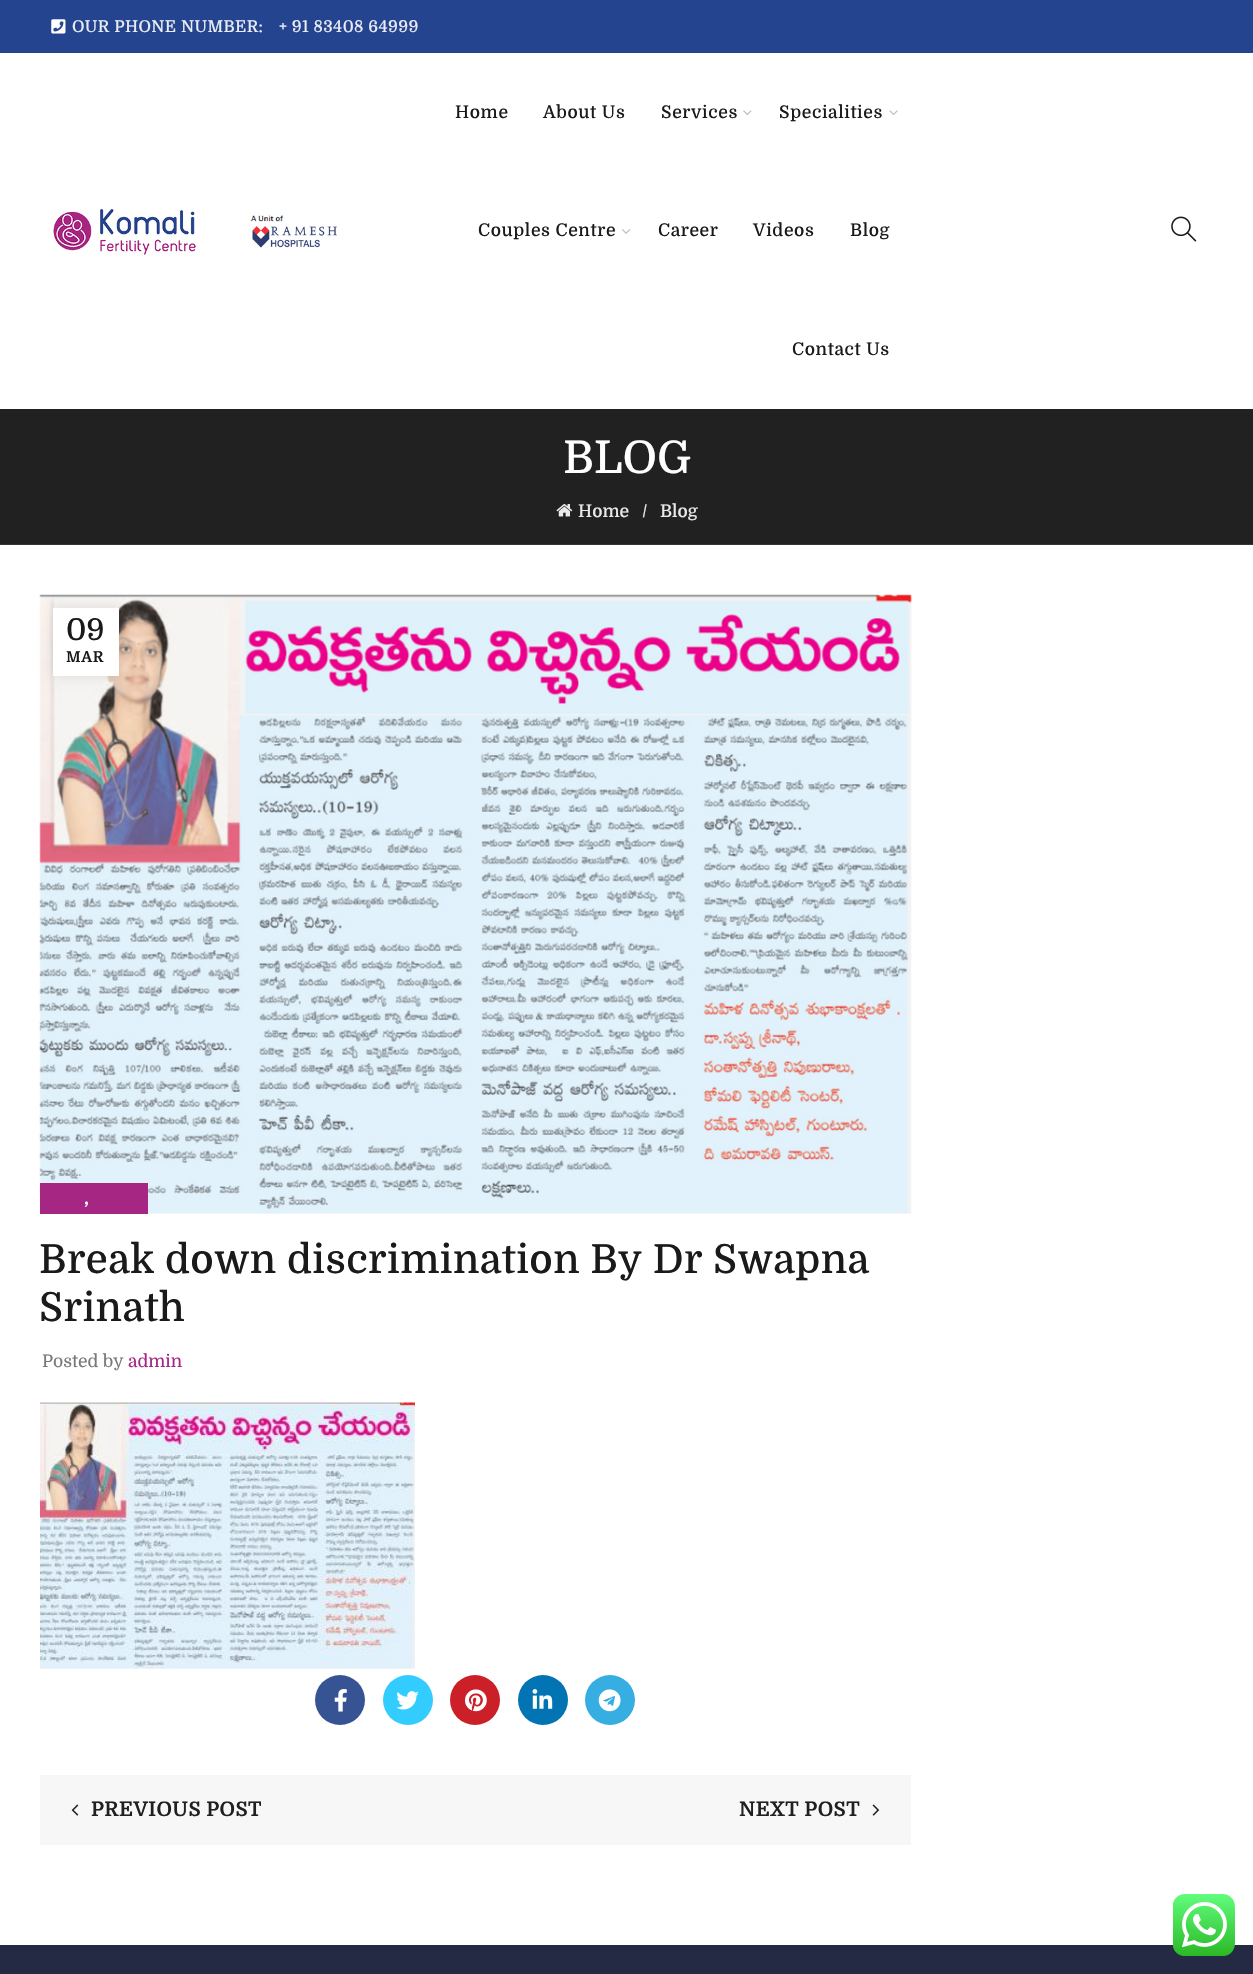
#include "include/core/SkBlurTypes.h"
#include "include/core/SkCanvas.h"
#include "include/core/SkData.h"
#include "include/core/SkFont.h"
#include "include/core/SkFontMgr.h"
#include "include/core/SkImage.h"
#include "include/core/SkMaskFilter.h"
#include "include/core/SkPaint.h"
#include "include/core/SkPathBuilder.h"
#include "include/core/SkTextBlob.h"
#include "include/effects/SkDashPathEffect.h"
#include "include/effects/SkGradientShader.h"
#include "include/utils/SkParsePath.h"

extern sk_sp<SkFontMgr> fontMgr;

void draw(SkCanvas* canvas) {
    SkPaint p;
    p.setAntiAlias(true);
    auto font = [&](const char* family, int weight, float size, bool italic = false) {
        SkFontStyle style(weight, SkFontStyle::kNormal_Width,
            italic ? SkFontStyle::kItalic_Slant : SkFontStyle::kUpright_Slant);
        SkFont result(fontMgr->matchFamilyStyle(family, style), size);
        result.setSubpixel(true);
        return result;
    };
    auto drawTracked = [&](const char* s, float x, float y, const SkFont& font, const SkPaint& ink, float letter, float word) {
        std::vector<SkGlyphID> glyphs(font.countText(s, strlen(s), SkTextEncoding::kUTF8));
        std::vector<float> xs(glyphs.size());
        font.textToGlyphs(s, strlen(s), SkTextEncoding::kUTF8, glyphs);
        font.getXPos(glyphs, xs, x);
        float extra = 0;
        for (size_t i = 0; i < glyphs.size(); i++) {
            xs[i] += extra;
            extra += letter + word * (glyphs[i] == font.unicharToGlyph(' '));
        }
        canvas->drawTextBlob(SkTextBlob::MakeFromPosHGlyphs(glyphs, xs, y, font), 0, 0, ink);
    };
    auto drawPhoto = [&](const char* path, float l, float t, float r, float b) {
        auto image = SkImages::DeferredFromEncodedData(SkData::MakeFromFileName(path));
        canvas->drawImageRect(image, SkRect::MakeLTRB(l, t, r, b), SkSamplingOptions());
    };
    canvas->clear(0xFFFFFFFF);
    p.setColor(0xFF24448F);
    canvas->drawRect(SkRect::MakeLTRB(0, 0, 1253, 53), p);
    drawPhoto("media/1.png", 51, 19, 66, 34);
    auto font1 = font("Domine", 500, 16.25f);
    p.setColor(0xFFE9ECF4);
    drawTracked("OUR PHONE NUMBER:", 72, 32, font1, p, 0.4f, 0);
    drawTracked("+ 91 83408 64999", 279, 32, font1, p, 0.4f, 0);
    drawPhoto("media/2.png", 53, 208, 337, 255);
    auto font2 = font("Domine", 500, 17.5f);
    p.setColor(0xFF1A1A1A);
    {
        const struct { const char* s; float x, y; } items[] = {
            {"Home", 455, 118},
            {"About Us", 543, 118},
            {"Services", 661, 118},
        };
        for (auto [s, x, y] : items) {
            drawTracked(s, x, y, font2, p, 0.6f, 0);
        }
    }
    drawPhoto("media/3.png", 743, 110, 752, 116);
    drawTracked("Specialities", 779, 118, font2, p, 0.6f, 0);
    drawPhoto("media/4.png", 889, 110, 898, 116);
    drawTracked("Couples Centre", 478, 236, font2, p, 0.6f, 0);
    drawPhoto("media/5.png", 622, 229, 631, 234);
    {
        const struct { const char* s; float x, y; } items[] = {
            {"Career", 658, 236},
            {"Videos", 753, 236},
            {"Blog", 850, 236},
            {"Contact Us", 792, 355},
        };
        for (auto [s, x, y] : items) {
            drawTracked(s, x, y, font2, p, 0.6f, 0);
        }
    }
    drawPhoto("media/6.png", 1171, 216, 1197, 242);
    p.setColor(0xFF212121);
    canvas->drawRect(SkRect::MakeLTRB(0, 409, 1253, 544), p);
    p.setColor(0xFF353535);
    canvas->drawRect(SkRect::MakeLTRB(0, 544, 1253, 545), p);
    auto font3 = font("Domine", 500, 45);
    p.setColor(0xFFFFFFFF);
    canvas->drawString("BLOG", 563, 473, font3, p);
    drawPhoto("media/7.png", 556, 504, 573, 517);
    p.setColor(0xFFE9E9E9);
    {
        const struct { const char* s; float x, y; } items[] = {
            {"Home", 578, 517},
            {"/", 642, 517},
            {"Blog", 660, 517},
        };
        for (auto [s, x, y] : items) {
            canvas->drawString(s, x, y, font2, p);
        }
    }
    drawPhoto("media/8.png", 39, 594, 912, 1214);
    p.setColor(0x1A000000);
    p.setMaskFilter(SkMaskFilter::MakeBlur(kNormal_SkBlurStyle, 5.5f));
    canvas->drawRect(SkRect::MakeLTRB(53, 608, 119, 676), p);
    p.setMaskFilter(nullptr);
    p.setColor(0xFFFFFFFF);
    canvas->drawRect(SkRect::MakeLTRB(53, 608, 119, 676), p);
    auto font4 = font("Domine", 500, 30);
    p.setColor(0xFF1A1A1A);
    canvas->drawString("09", 66, 640, font4, p);
    auto font5 = font("Domine", 700, 15);
    drawTracked("MAR", 66, 662, font5, p, 0.6f, 0);
    p.setColor(0xFFA62683);
    canvas->drawRect(SkRect::MakeLTRB(40, 1183, 148, 1214), p);
    auto font6 = font("Domine", 500, 20);
    p.setColor(0xFFFFFFFF);
    canvas->drawString(",", 84, 1204, font6, p);
    auto font7 = font("Domine", 500, 40);
    p.setColor(0xFF1A1A1A);
    drawTracked("Break down discrimination By Dr Swapna", 39, 1273, font7, p, 0.4f, 0);
    drawTracked("Srinath", 39, 1321, font7, p, 0.4f, 0);
    auto font8 = font("Domine", 400, 17.5f);
    p.setColor(0xFF787878);
    canvas->drawString("Posted by", 42, 1367, font8, p);
    p.setColor(0xFFA62683);
    canvas->drawString("admin", 128, 1367, font8, p);
    drawPhoto("media/9.png", 40, 1402, 415, 1669);
    p.setColor(0xFF365493);
    canvas->drawCircle(340, 1700, 25, p);
    drawPhoto("media/10.png", 334, 1689, 347, 1712);
    p.setColor(0xFF33CCFF);
    canvas->drawCircle(408, 1700, 25, p);
    drawPhoto("media/11.png", 396, 1691, 419, 1710);
    p.setColor(0xFFCB2027);
    canvas->drawCircle(475, 1700, 25, p);
    drawPhoto("media/12.png", 465, 1689, 487, 1712);
    p.setColor(0xFF0274B3);
    canvas->drawCircle(543, 1700, 25, p);
    drawPhoto("media/13.png", 532, 1689, 553, 1709);
    p.setColor(0xFF37AEE2);
    canvas->drawCircle(610, 1700, 25, p);
    drawPhoto("media/14.png", 598, 1689, 621, 1712);
    p.setColor(0xFFF7F7F7);
    canvas->drawRect(SkRect::MakeLTRB(40, 1775, 911, 1845), p);
    drawPhoto("media/15.png", 71, 1804, 79, 1816);
    auto font9 = font("Domine", 700, 20);
    p.setColor(0xFF202020);
    drawTracked("PREVIOUS POST", 91, 1816, font9, p, 0.4f, 0);
    drawTracked("NEXT POST", 739, 1816, font9, p, 0.4f, 0);
    drawPhoto("media/16.png", 872, 1804, 880, 1816);
    p.setColor(0xFF242A43);
    canvas->drawRect(SkRect::MakeLTRB(0, 1945, 1253, 1974), p);
    drawPhoto("media/17.png", 1173, 1894, 1235, 1956);
}
